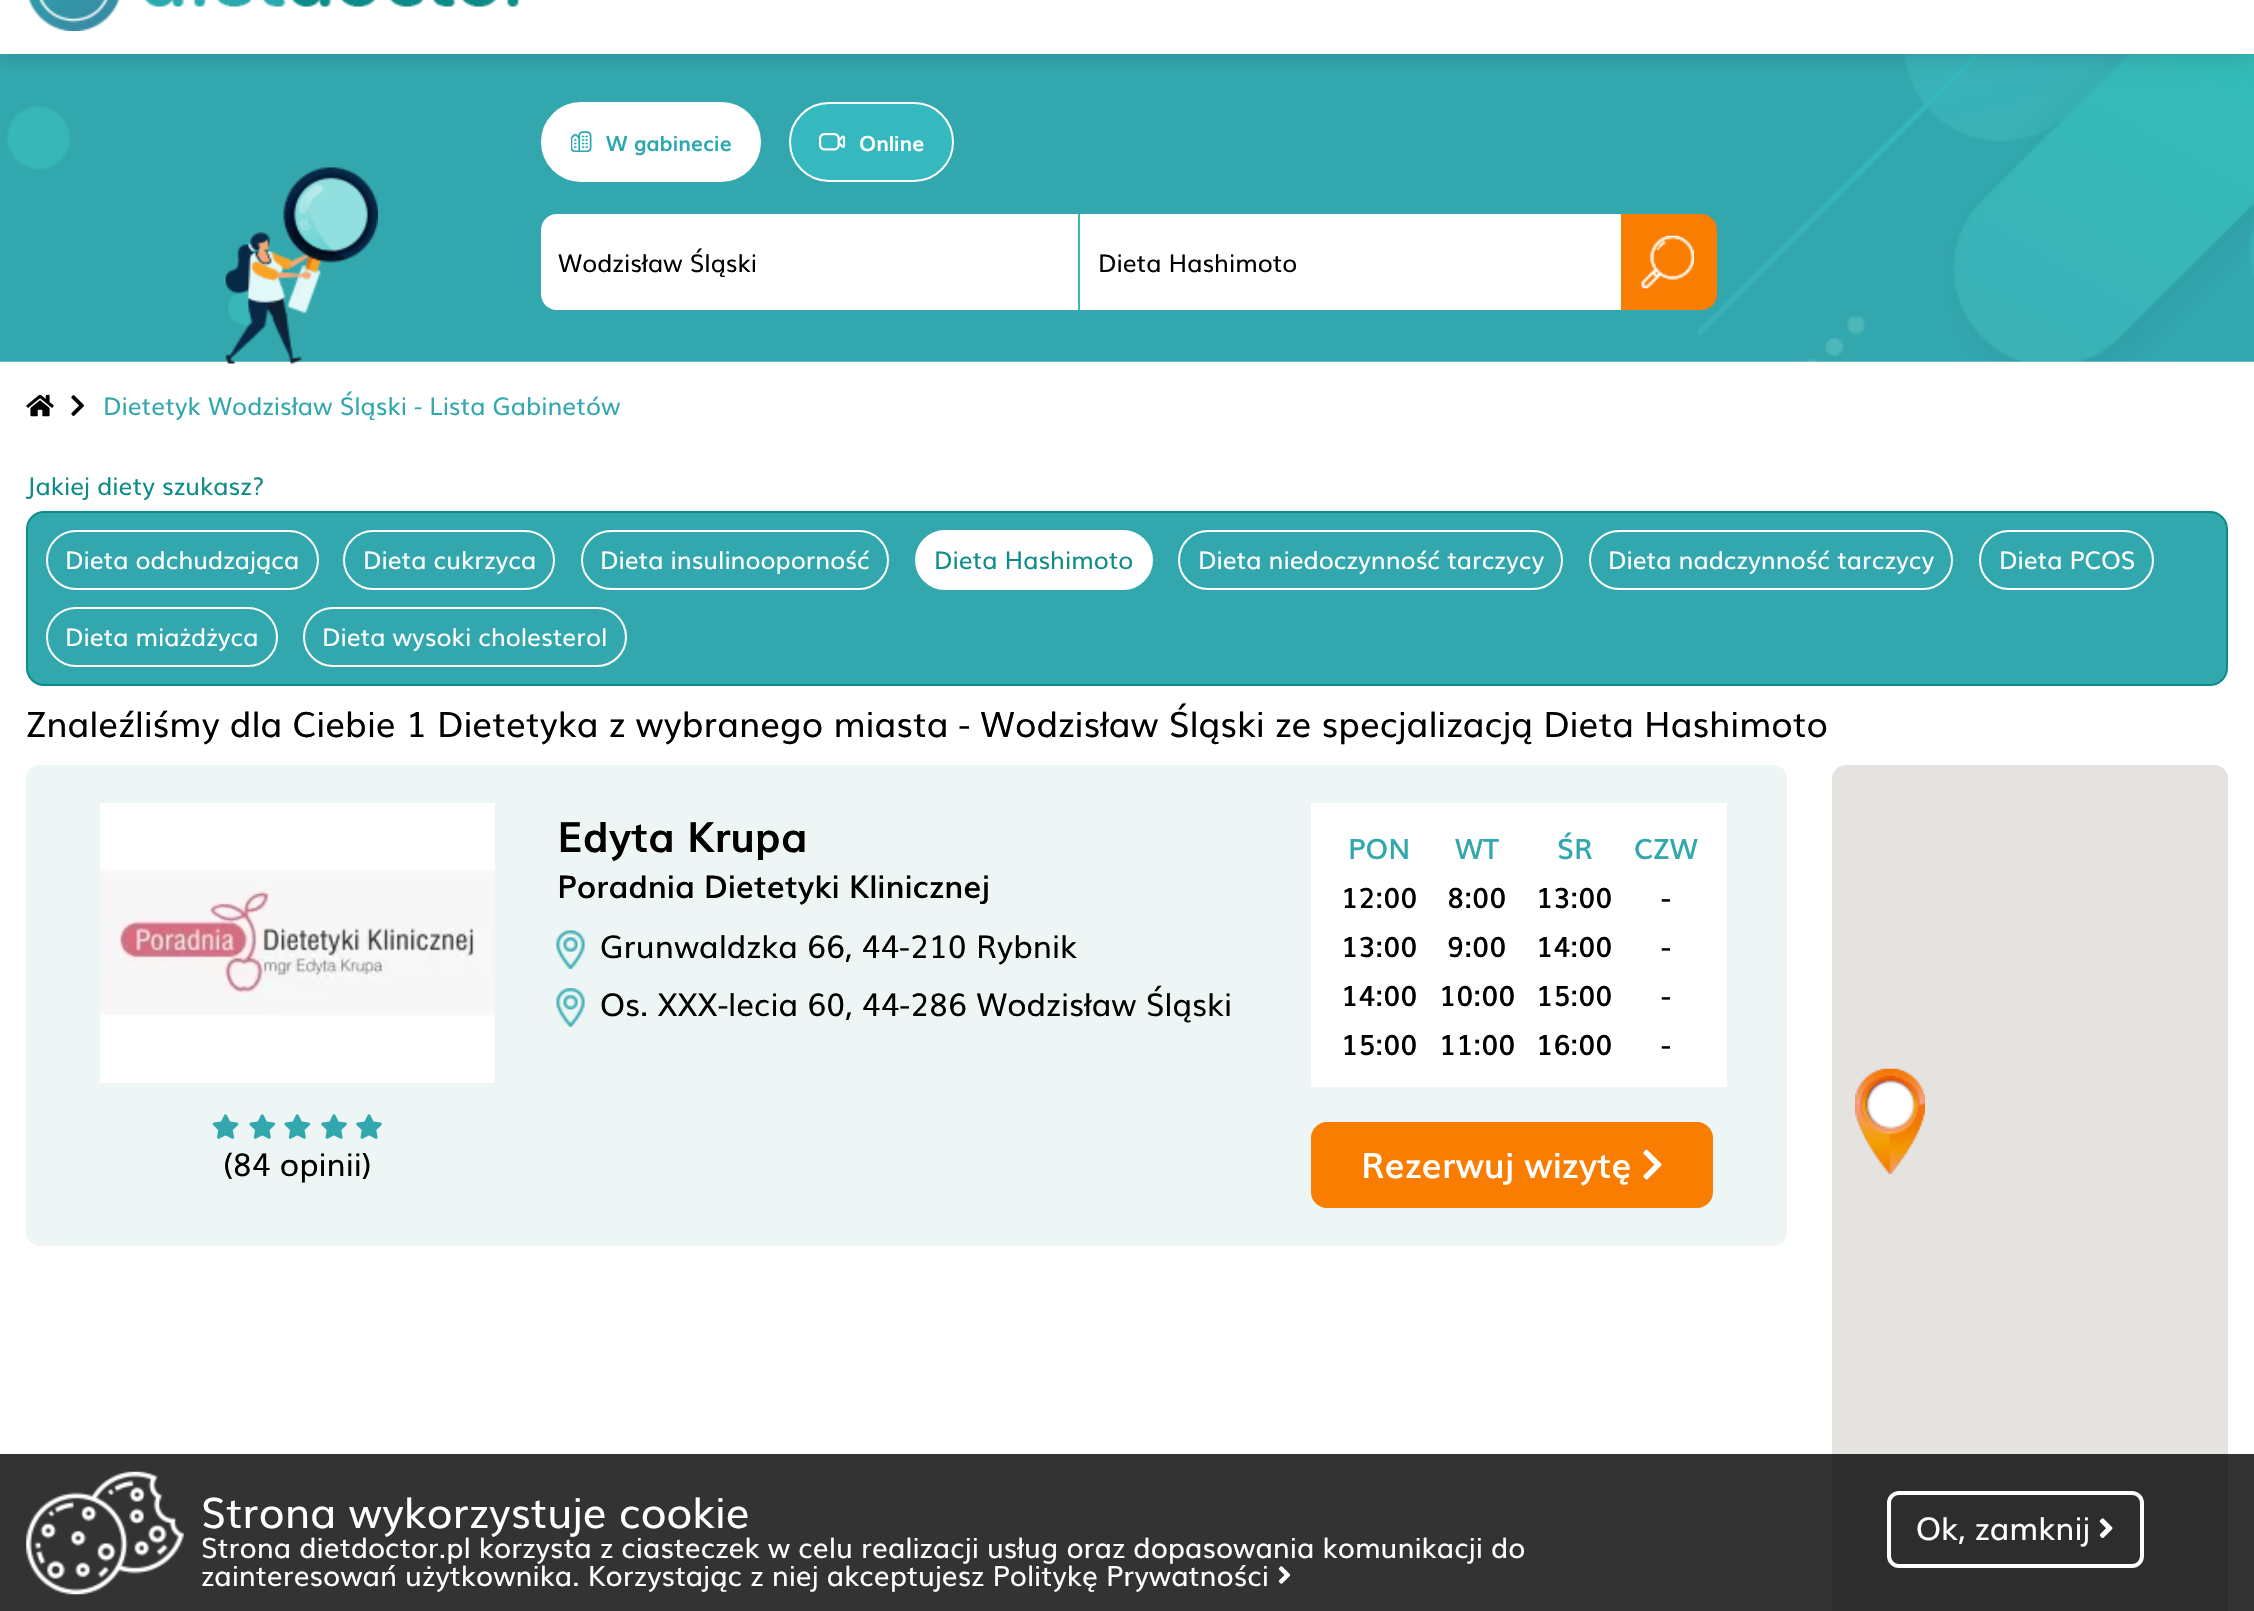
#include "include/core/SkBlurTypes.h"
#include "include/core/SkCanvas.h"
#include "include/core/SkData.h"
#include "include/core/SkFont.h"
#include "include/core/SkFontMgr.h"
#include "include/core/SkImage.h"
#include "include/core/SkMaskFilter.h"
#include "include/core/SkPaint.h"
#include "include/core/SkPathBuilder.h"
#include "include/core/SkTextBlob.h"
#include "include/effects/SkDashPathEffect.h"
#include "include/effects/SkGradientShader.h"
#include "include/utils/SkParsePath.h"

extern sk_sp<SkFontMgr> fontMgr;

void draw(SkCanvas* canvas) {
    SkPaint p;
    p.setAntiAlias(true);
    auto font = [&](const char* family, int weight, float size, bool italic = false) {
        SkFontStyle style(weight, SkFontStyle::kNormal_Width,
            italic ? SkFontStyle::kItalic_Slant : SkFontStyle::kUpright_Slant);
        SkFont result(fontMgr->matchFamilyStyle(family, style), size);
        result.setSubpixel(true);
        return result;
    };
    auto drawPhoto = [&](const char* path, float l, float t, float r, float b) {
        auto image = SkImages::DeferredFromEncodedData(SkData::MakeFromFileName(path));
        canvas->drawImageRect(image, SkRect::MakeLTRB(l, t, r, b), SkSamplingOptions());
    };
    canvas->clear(0xFFFFFFFF);
    p.setColor(0xFF333333);
    canvas->drawRect(SkRect::MakeLTRB(0, 1454, 2254, 1611), p);
    drawPhoto("media/2.png", 0, 54, 2254, 362);
    p.setColor(0x26000000);
    p.setMaskFilter(SkMaskFilter::MakeBlur(kNormal_SkBlurStyle, 10.5f));
    canvas->drawRect(SkRect::MakeLTRB(0, -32, 2254, 56), p);
    p.setMaskFilter(nullptr);
    p.setColor(0xFFFFFFFF);
    canvas->drawRect(SkRect::MakeLTRB(0, 0, 2254, 54), p);
    drawPhoto("media/1.png", 27, 0, 520, 31);
    drawPhoto("media/3.png", 225, 167, 378, 364);
    canvas->drawRoundRect(SkRect::MakeLTRB(542, 103, 760, 181), 39, 39, p);
    p.setStyle(SkPaint::kStroke_Style);
    p.setStrokeWidth(2);
    canvas->drawRoundRect(SkRect::MakeLTRB(542, 103, 760, 181), 39, 39, p);
    drawPhoto("media/4.png", 571, 131, 592, 152);
    auto font1 = font("Muli", 700, 21);
    p.setStyle(SkPaint::kFill_Style);
    p.setColor(0xFF29A8AF);
    canvas->drawString("W gabinecie", 606, 151, font1, p);
    p.setColor(0xFF35B9BF);
    canvas->drawRoundRect(SkRect::MakeLTRB(790, 103, 953, 181), 39, 39, p);
    p.setStyle(SkPaint::kStroke_Style);
    p.setColor(0xFFFFFFFF);
    canvas->drawRoundRect(SkRect::MakeLTRB(790, 103, 953, 181), 39, 39, p);
    drawPhoto("media/5.png", 819, 133, 845, 151);
    p.setStyle(SkPaint::kFill_Style);
    canvas->drawString("Online", 859, 151, font1, p);
    canvas->drawPath(SkPathBuilder().moveTo(557, 214).lineTo(1080, 214).lineTo(1080, 310).lineTo(557, 310).cubicTo(548, 310, 541, 303, 541, 294).lineTo(541, 230).cubicTo(541, 221, 548, 214, 557, 214).close().detach(), p);
    p.setColor(0xFF35B9BF);
    canvas->drawRect(SkRect::MakeLTRB(1078, 214, 1080, 310), p);
    auto font2 = font("Muli", 400, 24.5f);
    p.setColor(0xFF000000);
    canvas->drawString("Wodzisław Śląski", 558, 272, font2, p);
    p.setColor(0xFFFFFFFF);
    canvas->drawRect(SkRect::MakeLTRB(1080, 214, 1621, 310), p);
    p.setColor(0xFF000000);
    canvas->drawString("Dieta Hashimoto", 1098, 272, font2, p);
    p.setColor(0xFFF97D00);
    canvas->drawPath(SkPathBuilder().moveTo(1621, 214).lineTo(1701, 214).cubicTo(1710, 214, 1717, 221, 1717, 230).lineTo(1717, 294).cubicTo(1717, 303, 1710, 310, 1701, 310).lineTo(1621, 310).close().detach(), p);
    drawPhoto("media/6.png", 1641, 235, 1694, 289);
    drawPhoto("media/7.png", 26, 394, 54, 417);
    drawPhoto("media/8.png", 71, 395, 84, 416);
    p.setColor(0xFF32A8AE);
    canvas->drawString("Dietetyk Wodzisław Śląski - Lista Gabinetów", 103, 415, font2, p);
    p.setColor(0xFF0D8C89);
    canvas->drawString("Jakiej diety szukasz?", 26, 495, font2, p);
    p.setColor(0xFF32A8AE);
    canvas->drawRoundRect(SkRect::MakeLTRB(27, 512, 2227, 685), 17, 17, p);
    p.setStyle(SkPaint::kStroke_Style);
    p.setColor(0xFF0D8C89);
    canvas->drawRoundRect(SkRect::MakeLTRB(27, 512, 2227, 685), 17, 17, p);
    p.setColor(0xFFFFFFFF);
    canvas->drawRoundRect(SkRect::MakeLTRB(47, 531, 318, 589), 29, 29, p);
    p.setStyle(SkPaint::kFill_Style);
    canvas->drawString("Dieta odchudzająca", 65, 569, font2, p);
    p.setStyle(SkPaint::kStroke_Style);
    canvas->drawRoundRect(SkRect::MakeLTRB(344, 531, 554, 589), 29, 29, p);
    p.setStyle(SkPaint::kFill_Style);
    canvas->drawString("Dieta cukrzyca", 363, 569, font2, p);
    p.setStyle(SkPaint::kStroke_Style);
    canvas->drawRoundRect(SkRect::MakeLTRB(582, 531, 888, 589), 29, 29, p);
    p.setStyle(SkPaint::kFill_Style);
    canvas->drawString("Dieta insulinooporność", 600, 569, font2, p);
    canvas->drawRoundRect(SkRect::MakeLTRB(916, 531, 1152, 589), 29, 29, p);
    p.setStyle(SkPaint::kStroke_Style);
    canvas->drawRoundRect(SkRect::MakeLTRB(916, 531, 1152, 589), 29, 29, p);
    p.setStyle(SkPaint::kFill_Style);
    p.setColor(0xFF0D8C89);
    canvas->drawString("Dieta Hashimoto", 934, 569, font2, p);
    p.setStyle(SkPaint::kStroke_Style);
    p.setColor(0xFFFFFFFF);
    canvas->drawRoundRect(SkRect::MakeLTRB(1179, 531, 1562, 589), 29, 29, p);
    p.setStyle(SkPaint::kFill_Style);
    canvas->drawString("Dieta niedoczynność tarczycy", 1198, 569, font2, p);
    p.setStyle(SkPaint::kStroke_Style);
    canvas->drawRoundRect(SkRect::MakeLTRB(1590, 531, 1952, 589), 29, 29, p);
    p.setStyle(SkPaint::kFill_Style);
    canvas->drawString("Dieta nadczynność tarczycy", 1608, 569, font2, p);
    p.setStyle(SkPaint::kStroke_Style);
    canvas->drawRoundRect(SkRect::MakeLTRB(1980, 531, 2153, 589), 29, 29, p);
    p.setStyle(SkPaint::kFill_Style);
    canvas->drawString("Dieta PCOS", 1999, 569, font2, p);
    p.setStyle(SkPaint::kStroke_Style);
    canvas->drawRoundRect(SkRect::MakeLTRB(47, 608, 277, 666), 29, 29, p);
    p.setStyle(SkPaint::kFill_Style);
    canvas->drawString("Dieta miażdżyca", 65, 646, font2, p);
    p.setStyle(SkPaint::kStroke_Style);
    canvas->drawRoundRect(SkRect::MakeLTRB(304, 608, 626, 666), 29, 29, p);
    p.setStyle(SkPaint::kFill_Style);
    canvas->drawString("Dieta wysoki cholesterol", 322, 646, font2, p);
    auto font3 = font("Muli", 400, 35);
    p.setColor(0xFF000000);
    canvas->drawString("Znaleźliśmy dla Ciebie 1 Dietetyka z wybranego miasta - Wodzisław Śląski ze specjalizacją Dieta Hashimoto", 26, 737, font3, p);
    p.setColor(0xFFEDF5F5);
    canvas->drawRoundRect(SkRect::MakeLTRB(28, 767, 1785, 1244), 12, 12, p);
    p.setStyle(SkPaint::kStroke_Style);
    p.setStrokeWidth(4);
    canvas->drawRoundRect(SkRect::MakeLTRB(28, 767, 1785, 1244), 12, 12, p);
    p.setStyle(SkPaint::kFill_Style);
    p.setColor(0xFFFFFFFF);
    canvas->drawRect(SkRect::MakeLTRB(100, 803, 495, 1083), p);
    drawPhoto("media/9.png", 99, 870, 495, 1016);
    drawPhoto("media/10.png", 212, 1114, 239, 1139);
    drawPhoto("media/11.png", 249, 1114, 276, 1139);
    drawPhoto("media/11.png", 284, 1114, 311, 1139);
    drawPhoto("media/12.png", 321, 1114, 347, 1139);
    drawPhoto("media/12.png", 356, 1114, 382, 1139);
    auto font4 = font("Muli", 400, 31.5f);
    p.setColor(0xFF000000);
    canvas->drawString("(84 opinii)", 223, 1176, font4, p);
    auto font5 = font("Muli", 700, 42);
    canvas->drawString("Edyta Krupa", 557, 852, font5, p);
    auto font6 = font("Muli", 600, 31.5f);
    canvas->drawString("Poradnia Dietetyki Klinicznej", 557, 898, font6, p);
    drawPhoto("media/13.png", 556, 930, 585, 969);
    canvas->drawString("Grunwaldzka 66, 44-210 Rybnik", 600, 958, font4, p);
    drawPhoto("media/14.png", 556, 988, 585, 1027);
    canvas->drawString("Os. XXX-lecia 60, 44-286 Wodzisław Śląski", 600, 1016, font4, p);
    p.setColor(0xFFFFFFFF);
    canvas->drawRect(SkRect::MakeLTRB(1311, 803, 1727, 1087), p);
    auto font7 = font("Muli", 600, 28);
    p.setColor(0xFF32A8AE);
    {
        const struct { const char* s; float x, y; } items[] = {
            {"PON", 1348, 859},
            {"WT", 1455, 859},
            {"ŚR", 1557, 859},
            {"CZW", 1634, 859},
        };
        for (auto [s, x, y] : items) {
            canvas->drawString(s, x, y, font7, p);
        }
    }
    p.setColor(0xFF000000);
    {
        const struct { const char* s; float x, y; } items[] = {
            {"12:00", 1341, 908},
            {"8:00", 1447, 908},
            {"13:00", 1536, 908},
            {"-", 1661, 908},
            {"13:00", 1341, 957},
            {"9:00", 1447, 957},
            {"14:00", 1536, 957},
            {"-", 1661, 957},
            {"14:00", 1341, 1006},
            {"10:00", 1439, 1006},
            {"15:00", 1536, 1006},
            {"-", 1661, 1006},
            {"15:00", 1341, 1055},
            {"11:00", 1439, 1055},
            {"16:00", 1536, 1055},
            {"-", 1661, 1055},
        };
        for (auto [s, x, y] : items) {
            canvas->drawString(s, x, y, font7, p);
        }
    }
    p.setColor(0xFFF97D00);
    canvas->drawRoundRect(SkRect::MakeLTRB(1313, 1124, 1711, 1206), 14, 14, p);
    p.setStyle(SkPaint::kStroke_Style);
    canvas->drawRoundRect(SkRect::MakeLTRB(1313, 1124, 1711, 1206), 14, 14, p);
    auto font8 = font("Muli", 600, 35);
    p.setStyle(SkPaint::kFill_Style);
    p.setColor(0xFFFFFFFF);
    canvas->drawString("Rezerwuj wizytę", 1361, 1178, font8, p);
    drawPhoto("media/15.png", 1643, 1149, 1662, 1180);
    p.setColor(0xFFE5E3DF);
    canvas->drawRoundRect(SkRect::MakeLTRB(1832, 765, 2228, 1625), 14, 14, p);
    p.setColor(0xFF2E2D2D);
    canvas->drawRect(SkRect::MakeLTRB(1832, 1454, 2228, 1611), p);
    drawPhoto("media/16.png", 1855, 1068, 1925, 1174);
    drawPhoto("media/17.png", 26, 1471, 184, 1595);
    auto font9 = font("Muli", 400, 42);
    p.setColor(0xFFFFFFFF);
    canvas->drawString("Strona wykorzystuje cookie", 201, 1528, font9, p);
    auto font10 = font("Muli", 400, 28);
    canvas->drawString("Strona dietdoctor.pl korzysta z ciasteczek w celu realizacji usług oraz dopasowania komunikacji do", 201, 1558, font10, p);
    canvas->drawString("zainteresowań użytkownika. Korzystając z niej akceptujesz Politykę Prywatności", 201, 1586, font10, p);
    drawPhoto("media/18.png", 1278, 1566, 1291, 1584);
    p.setStyle(SkPaint::kStroke_Style);
    canvas->drawRoundRect(SkRect::MakeLTRB(1889, 1493, 2142, 1566), 10, 10, p);
    p.setStyle(SkPaint::kFill_Style);
    canvas->drawString("Ok, zamknij", 1916, 1540, font4, p);
    drawPhoto("media/19.png", 2099, 1518, 2113, 1538);
}
